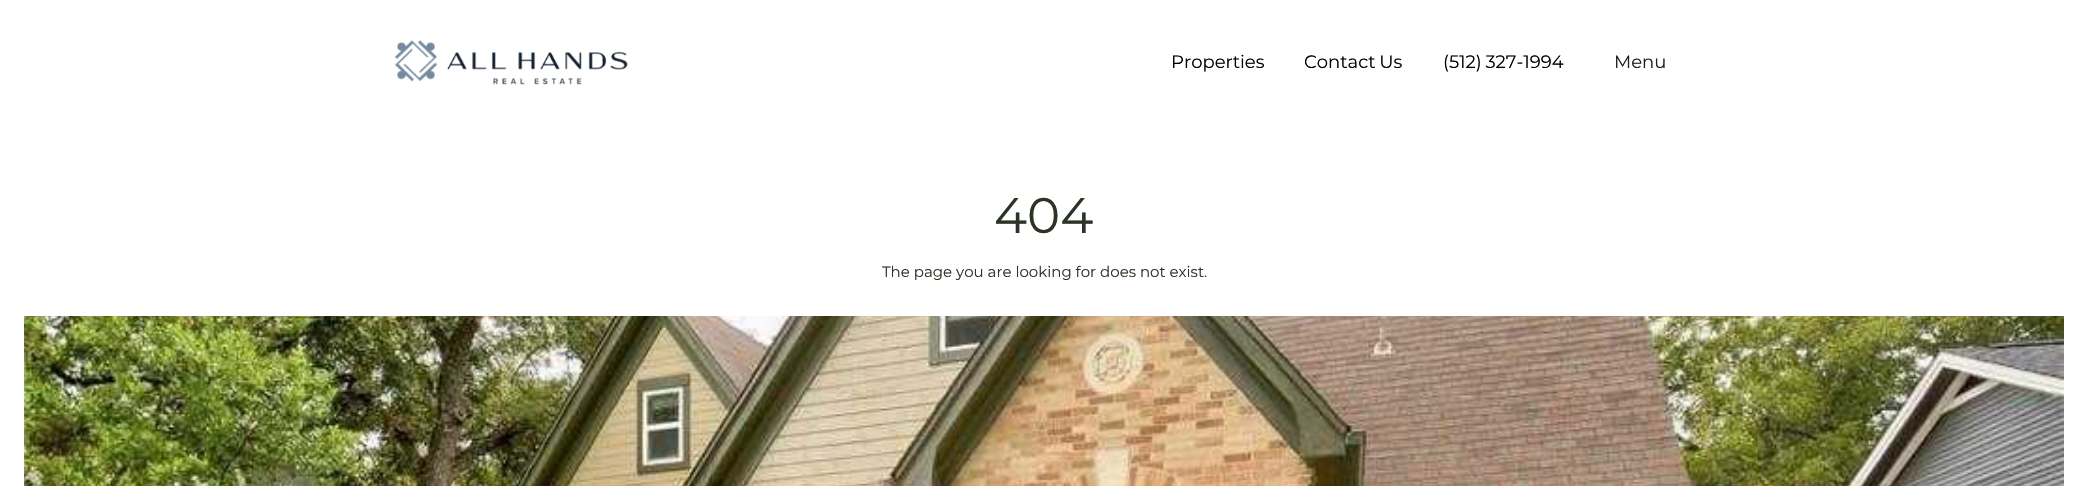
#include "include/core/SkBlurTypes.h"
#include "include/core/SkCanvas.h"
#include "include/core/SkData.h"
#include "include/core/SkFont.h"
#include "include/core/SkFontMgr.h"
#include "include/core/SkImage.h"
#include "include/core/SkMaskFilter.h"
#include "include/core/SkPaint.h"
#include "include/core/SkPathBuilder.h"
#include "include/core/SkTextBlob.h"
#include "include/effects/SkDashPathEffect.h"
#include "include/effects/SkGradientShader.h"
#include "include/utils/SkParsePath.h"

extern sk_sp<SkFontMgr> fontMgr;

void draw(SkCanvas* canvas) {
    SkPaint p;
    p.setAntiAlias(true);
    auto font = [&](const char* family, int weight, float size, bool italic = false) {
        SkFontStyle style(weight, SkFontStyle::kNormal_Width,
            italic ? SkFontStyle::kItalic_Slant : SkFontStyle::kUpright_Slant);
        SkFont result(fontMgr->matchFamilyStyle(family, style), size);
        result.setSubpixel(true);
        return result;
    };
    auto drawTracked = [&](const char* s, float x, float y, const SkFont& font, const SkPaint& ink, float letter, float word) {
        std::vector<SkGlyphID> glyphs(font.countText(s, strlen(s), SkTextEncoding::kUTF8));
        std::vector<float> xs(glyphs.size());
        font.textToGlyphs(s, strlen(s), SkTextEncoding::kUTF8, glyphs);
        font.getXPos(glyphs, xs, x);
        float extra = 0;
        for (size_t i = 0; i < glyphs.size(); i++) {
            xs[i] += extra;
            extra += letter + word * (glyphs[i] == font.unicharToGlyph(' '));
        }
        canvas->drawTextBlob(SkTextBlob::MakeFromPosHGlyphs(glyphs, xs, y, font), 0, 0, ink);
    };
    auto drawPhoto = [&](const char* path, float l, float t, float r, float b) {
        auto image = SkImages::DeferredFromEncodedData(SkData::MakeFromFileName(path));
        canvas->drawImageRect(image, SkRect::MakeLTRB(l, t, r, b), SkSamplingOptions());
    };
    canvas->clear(0xFFFFFFFF);
    drawPhoto("media/1.png", 394, 40, 628, 85);
    auto font1 = font("Montserrat", 400, 18);
    p.setColor(0xFF000000);
    canvas->drawString("Properties", 1171, 68, font1, p);
    drawTracked("Contact Us", 1304, 68, font1, p, 0, -1);
    drawTracked("(512) 327-1994", 1443, 68, font1, p, 0, -1);
    p.setColor(0xFF211F1F);
    canvas->drawString("Menu", 1614, 68, font1, p);
    auto font2 = font("Montserrat", 400, 50);
    p.setColor(0xFF2C3426);
    canvas->drawString("404", 994, 233, font2, p);
    auto font3 = font("Montserrat", 400, 15);
    canvas->drawString("The page you are looking for does not exist.", 882, 277, font3, p);
    drawPhoto("media/2.png", 24, 316, 2064, 486);
}
